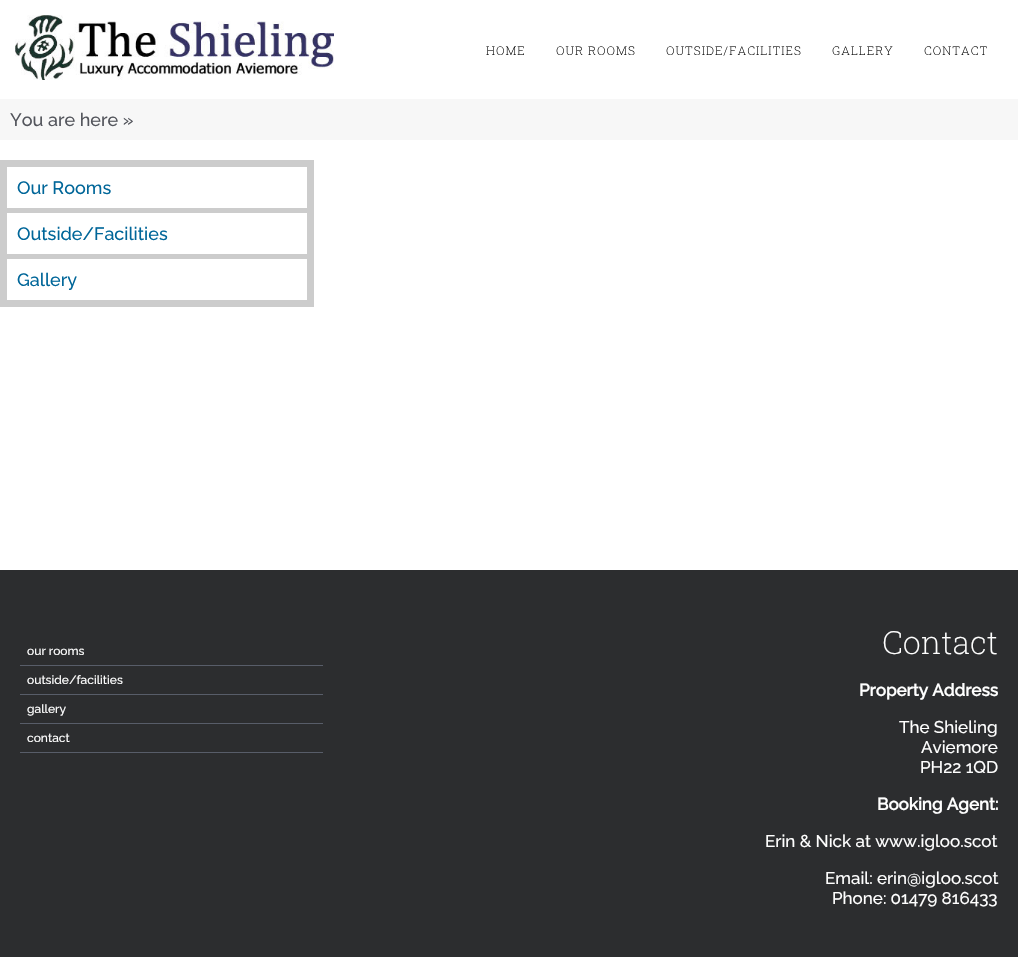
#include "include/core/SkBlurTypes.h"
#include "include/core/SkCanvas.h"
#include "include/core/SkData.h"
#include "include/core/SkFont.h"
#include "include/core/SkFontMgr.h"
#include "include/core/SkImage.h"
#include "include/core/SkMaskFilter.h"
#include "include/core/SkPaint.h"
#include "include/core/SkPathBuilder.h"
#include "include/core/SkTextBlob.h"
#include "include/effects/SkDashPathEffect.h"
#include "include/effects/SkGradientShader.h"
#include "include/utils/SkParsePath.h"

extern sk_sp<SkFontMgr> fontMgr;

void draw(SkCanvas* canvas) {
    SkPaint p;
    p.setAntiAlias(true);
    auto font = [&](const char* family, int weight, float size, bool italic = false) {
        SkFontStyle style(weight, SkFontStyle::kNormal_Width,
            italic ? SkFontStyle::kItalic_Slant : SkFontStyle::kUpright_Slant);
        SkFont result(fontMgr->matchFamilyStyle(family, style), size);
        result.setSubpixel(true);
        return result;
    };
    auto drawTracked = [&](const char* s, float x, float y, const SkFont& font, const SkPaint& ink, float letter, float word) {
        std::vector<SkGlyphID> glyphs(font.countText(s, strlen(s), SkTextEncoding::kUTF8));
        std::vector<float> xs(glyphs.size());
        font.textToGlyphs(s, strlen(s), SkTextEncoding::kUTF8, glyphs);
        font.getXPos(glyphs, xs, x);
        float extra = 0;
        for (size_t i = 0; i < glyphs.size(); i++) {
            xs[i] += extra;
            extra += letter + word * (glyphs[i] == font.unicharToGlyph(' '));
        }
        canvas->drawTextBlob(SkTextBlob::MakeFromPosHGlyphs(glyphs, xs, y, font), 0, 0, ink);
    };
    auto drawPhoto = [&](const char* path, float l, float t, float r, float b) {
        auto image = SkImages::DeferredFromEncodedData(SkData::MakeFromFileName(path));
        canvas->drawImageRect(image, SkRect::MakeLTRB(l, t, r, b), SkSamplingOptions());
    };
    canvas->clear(0xFFFFFFFF);
    drawPhoto("media/1.png", 15, 15, 334, 80);
    auto font1 = font("Roboto Slab", 200, 12);
    p.setColor(0xFF020202);
    {
        const struct { const char* s; float x, y; } items[] = {
            {"HOME", 486, 55},
            {"OUR ROOMS", 556, 55},
            {"OUTSIDE/FACILITIES", 666, 55},
            {"GALLERY", 832, 55},
            {"CONTACT", 924, 55},
        };
        for (auto [s, x, y] : items) {
            drawTracked(s, x, y, font1, p, 1, 0);
        }
    }
    p.setColor(0xFFF7F7F7);
    canvas->drawRect(SkRect::MakeLTRB(0, 99, 1018, 140), p);
    auto font2 = font("Raleway", 500, 18);
    p.setColor(0xFF53555C);
    canvas->drawString("You are here »", 10, 126, font2, p);
    p.setColor(0xFFCCCCCC);
    canvas->drawRect(SkRect::MakeLTRB(0, 160, 314, 307), p);
    p.setColor(0xFFFFFFFF);
    canvas->drawRect(SkRect::MakeLTRB(7, 167, 307, 208), p);
    p.setColor(0xFF006699);
    canvas->drawString("Our Rooms", 17, 194, font2, p);
    p.setColor(0xFFFFFFFF);
    canvas->drawRect(SkRect::MakeLTRB(7, 213, 307, 254), p);
    p.setColor(0xFF006699);
    canvas->drawString("Outside/Facilities", 17, 240, font2, p);
    p.setColor(0xFFFFFFFF);
    canvas->drawRect(SkRect::MakeLTRB(7, 259, 307, 300), p);
    p.setColor(0xFF006699);
    canvas->drawString("Gallery", 17, 286, font2, p);
    p.setColor(0xFF2C2D2F);
    canvas->drawRect(SkRect::MakeLTRB(0, 570, 1018, 957), p);
    p.setColor(0xFF585D69);
    canvas->drawRect(SkRect::MakeLTRB(20, 665, 323, 666), p);
    auto font3 = font("Raleway", 500, 12);
    p.setColor(0xFFFFFFFF);
    canvas->drawString("our rooms", 27, 655, font3, p);
    p.setColor(0xFF585D69);
    canvas->drawRect(SkRect::MakeLTRB(20, 694, 323, 695), p);
    p.setColor(0xFFFFFFFF);
    canvas->drawString("outside/facilities", 27, 684, font3, p);
    p.setColor(0xFF585D69);
    canvas->drawRect(SkRect::MakeLTRB(20, 723, 323, 724), p);
    p.setColor(0xFFFFFFFF);
    canvas->drawString("gallery", 27, 713, font3, p);
    p.setColor(0xFF585D69);
    canvas->drawRect(SkRect::MakeLTRB(20, 752, 323, 753), p);
    p.setColor(0xFFFFFFFF);
    canvas->drawString("contact", 27, 742, font3, p);
    auto font4 = font("Roboto Slab", 200, 32);
    canvas->drawString("Contact", 882, 654, font4, p);
    auto font5 = font("Raleway", 700, 17);
    canvas->drawString("Property Address", 859, 696, font5, p);
    auto font6 = font("Raleway", 500, 17);
    {
        const struct { const char* s; float x, y; } items[] = {
            {"The Shieling", 899, 733},
            {"Aviemore", 921, 753},
            {"PH22 1QD", 920, 773},
        };
        for (auto [s, x, y] : items) {
            canvas->drawString(s, x, y, font6, p);
        }
    }
    canvas->drawString("Booking Agent:", 877, 810, font5, p);
    {
        const struct { const char* s; float x, y; } items[] = {
            {"Erin & Nick at www.igloo.scot", 765, 847},
            {"Email: erin@igloo.scot", 825, 884},
            {"Phone: 01479 816433", 832, 904},
        };
        for (auto [s, x, y] : items) {
            canvas->drawString(s, x, y, font6, p);
        }
    }
}
